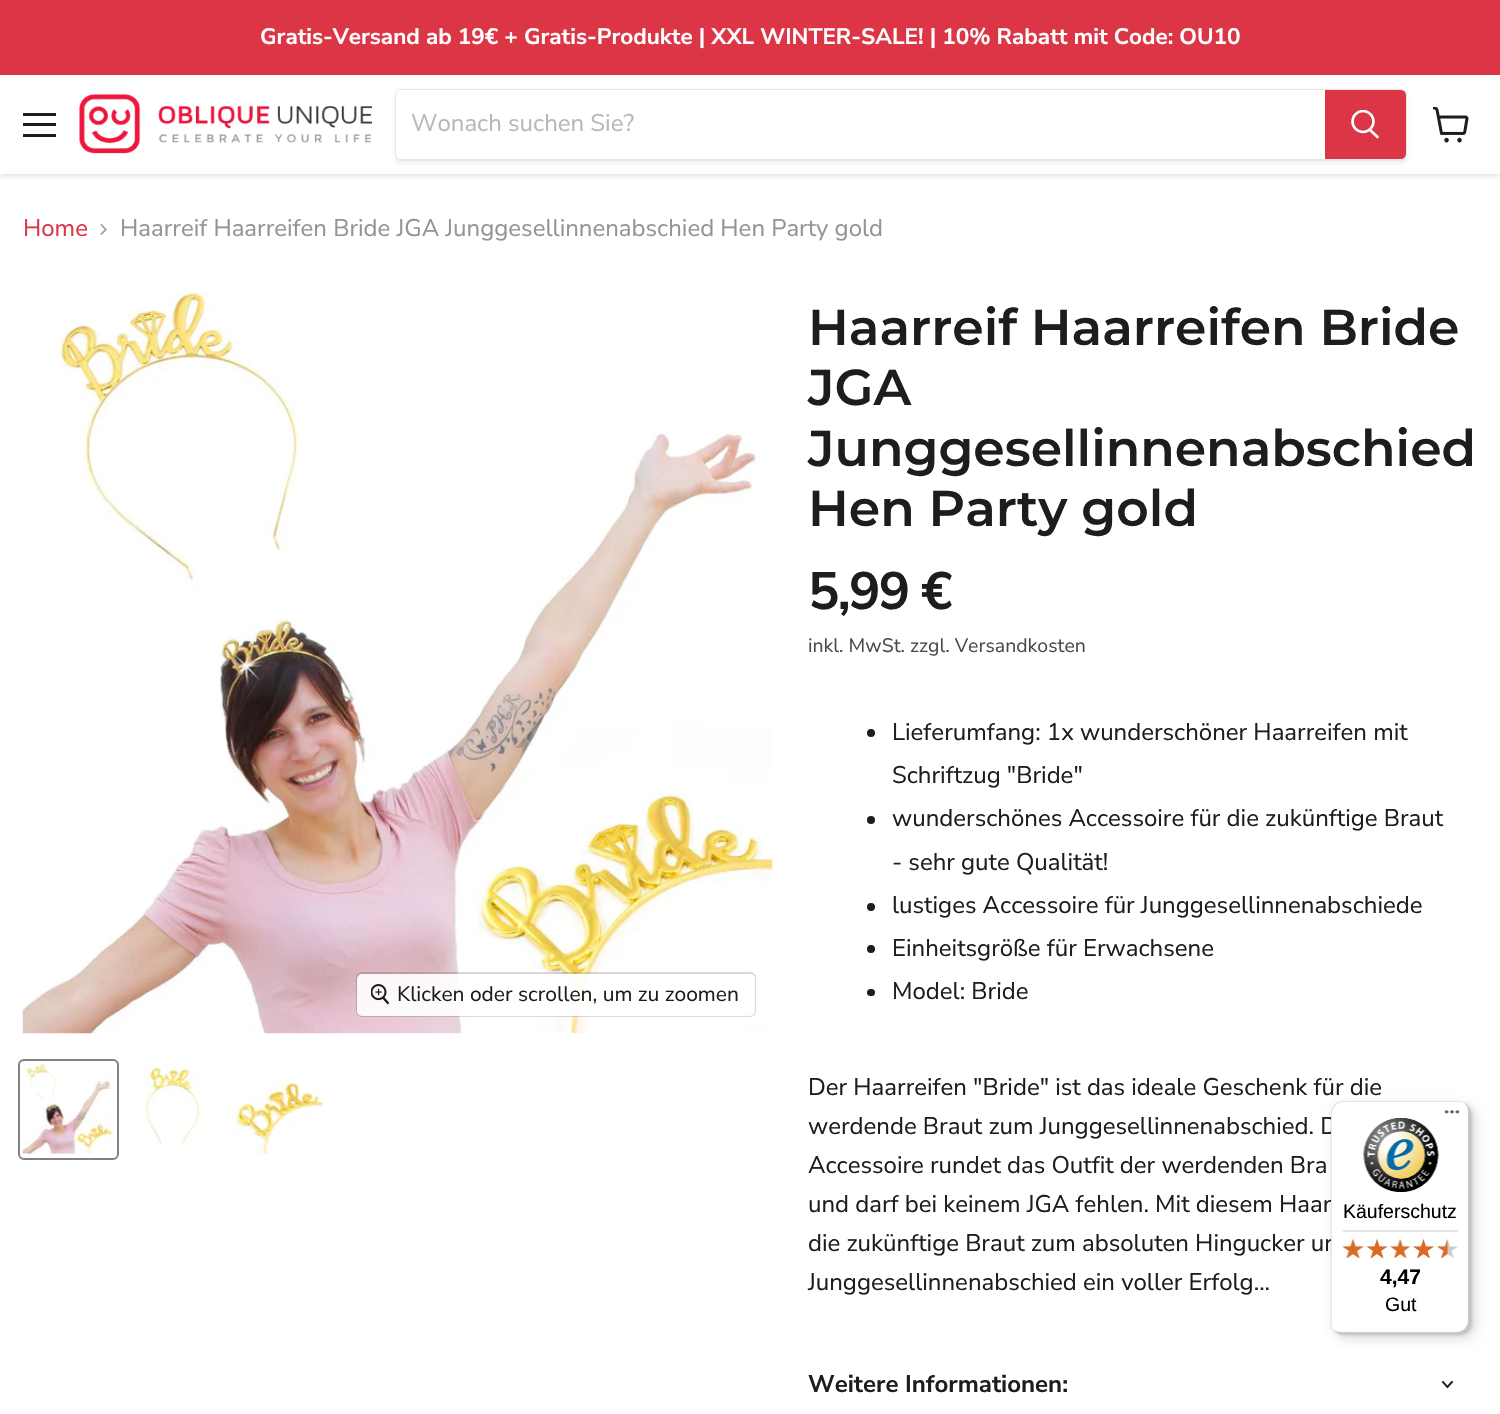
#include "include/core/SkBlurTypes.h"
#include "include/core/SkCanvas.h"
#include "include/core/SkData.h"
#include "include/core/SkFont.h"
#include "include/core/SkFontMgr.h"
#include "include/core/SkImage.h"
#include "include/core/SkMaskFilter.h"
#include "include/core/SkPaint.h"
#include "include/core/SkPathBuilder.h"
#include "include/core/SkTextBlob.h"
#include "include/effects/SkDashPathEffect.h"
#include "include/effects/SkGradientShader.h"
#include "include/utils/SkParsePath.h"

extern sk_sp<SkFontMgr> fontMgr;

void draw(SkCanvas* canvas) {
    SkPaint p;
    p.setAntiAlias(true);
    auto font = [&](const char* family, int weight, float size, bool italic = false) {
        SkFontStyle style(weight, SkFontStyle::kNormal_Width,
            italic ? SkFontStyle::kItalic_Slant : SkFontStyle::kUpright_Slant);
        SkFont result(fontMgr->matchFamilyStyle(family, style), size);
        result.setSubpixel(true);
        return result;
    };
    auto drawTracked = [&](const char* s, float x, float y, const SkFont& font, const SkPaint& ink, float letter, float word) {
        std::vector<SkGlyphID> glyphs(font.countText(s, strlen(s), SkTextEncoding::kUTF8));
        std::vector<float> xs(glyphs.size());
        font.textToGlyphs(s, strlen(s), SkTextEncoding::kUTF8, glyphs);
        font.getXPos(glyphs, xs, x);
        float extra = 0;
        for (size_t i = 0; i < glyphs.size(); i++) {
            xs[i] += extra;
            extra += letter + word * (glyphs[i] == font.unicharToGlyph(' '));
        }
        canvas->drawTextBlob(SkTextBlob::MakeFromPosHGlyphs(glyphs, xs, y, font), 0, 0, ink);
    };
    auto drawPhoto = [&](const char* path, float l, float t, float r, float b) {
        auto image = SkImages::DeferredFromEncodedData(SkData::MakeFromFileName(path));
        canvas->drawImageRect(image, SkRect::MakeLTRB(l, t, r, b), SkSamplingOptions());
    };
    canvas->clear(0xFFFFFFFF);
    canvas->save();
    canvas->clipRect(SkRect::MakeLTRB(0, 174, 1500, 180));
    p.setColor(0x40808080);
    p.setMaskFilter(SkMaskFilter::MakeBlur(kNormal_SkBlurStyle, 3));
    canvas->drawRect(SkRect::MakeLTRB(0, 77, 1500, 176), p);
    p.setMaskFilter(nullptr);
    canvas->restore();
    p.setColor(0xFFDC3545);
    canvas->drawRect(SkRect::MakeLTRB(0, 0, 1500, 75), p);
    auto font1 = font("Nunito Sans", 700, 22.5f);
    p.setColor(0xFFFFFFFF);
    canvas->drawString("Gratis-Versand ab 19€ + Gratis-Produkte | XXL WINTER-SALE! | 10% Rabatt mit Code: OU10", 260, 44, font1, p);
    {
        const struct { float l, t, r, b; SkColor color; } items[] = {
            {23, 113, 56, 116, 0xFF1D1D1D},
            {23, 123, 56, 126, 0xFF1D1D1D},
            {23, 134, 56, 137, 0xFF1D1D1D},
        };
        for (auto [l, t, r, b, color] : items) {
            p.setColor(color);
            canvas->drawRect(SkRect::MakeLTRB(l, t, r, b), p);
        }
    }
    drawPhoto("media/1.png", 79, 94, 372, 154);
    canvas->save();
    canvas->clipPath(SkPathBuilder(SkPathFillType::kEvenOdd).moveTo(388, 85).lineTo(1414, 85).lineTo(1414, 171).lineTo(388, 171).close().moveTo(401, 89).lineTo(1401, 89).cubicTo(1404.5f, 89, 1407, 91.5f, 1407, 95).lineTo(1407, 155).cubicTo(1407, 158.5f, 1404.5f, 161, 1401, 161).lineTo(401, 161).cubicTo(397.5f, 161, 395, 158.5f, 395, 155).lineTo(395, 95).cubicTo(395, 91.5f, 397.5f, 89, 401, 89).close().detach(), true);
    p.setColor(0x1C808080);
    p.setMaskFilter(SkMaskFilter::MakeBlur(kNormal_SkBlurStyle, 2));
    canvas->drawRoundRect(SkRect::MakeLTRB(395, 92, 1407, 164), 6, 6, p);
    p.setMaskFilter(nullptr);
    canvas->restore();
    p.setStyle(SkPaint::kStroke_Style);
    p.setStrokeWidth(2);
    p.setColor(0x33808080);
    canvas->drawRoundRect(SkRect::MakeLTRB(396, 90, 1406, 160), 5, 5, p);
    p.setStyle(SkPaint::kFill_Style);
    p.setColor(0xFFFFFFFF);
    canvas->drawPath(SkPathBuilder().moveTo(401, 90).lineTo(1325, 90).lineTo(1325, 159).lineTo(401, 159).cubicTo(398, 159, 396, 157, 396, 154).lineTo(396, 95).cubicTo(396, 92, 398, 90, 401, 90).close().detach(), p);
    auto font2 = font("Nunito Sans", 400, 24);
    p.setColor(0xFFB8B8B8);
    canvas->drawString("Wonach suchen Sie?", 411, 131, font2, p);
    p.setColor(0xFFDC3545);
    canvas->drawPath(SkPathBuilder().moveTo(1326, 91).lineTo(1401, 91).cubicTo(1403, 91, 1405, 93, 1405, 95).lineTo(1405, 154).cubicTo(1405, 156, 1403, 158, 1401, 158).lineTo(1326, 158).close().detach(), p);
    p.setStyle(SkPaint::kStroke_Style);
    canvas->drawPath(SkPathBuilder().moveTo(1326, 91).lineTo(1401, 91).cubicTo(1403, 91, 1405, 93, 1405, 95).lineTo(1405, 154).cubicTo(1405, 156, 1403, 158, 1401, 158).lineTo(1326, 158).close().detach(), p);
    p.setStrokeWidth(2.6f);
    p.setStrokeCap(SkPaint::kRound_Cap);
    p.setColor(0xFFFFFFFF);
    canvas->drawPath(SkPathBuilder().moveTo(1377.5f, 137).lineTo(1370, 130).detach(), p);
    canvas->save();
    canvas->clipRect(SkRect::MakeLTRB(1350, 110, 1380, 141));
    p.setStrokeCap(SkPaint::kButt_Cap);
    canvas->drawCircle(1363, 121.5f, 10.5f, p);
    canvas->restore();
    drawPhoto("media/2.png", 1433, 107, 1469, 143);
    p.setStyle(SkPaint::kFill_Style);
    p.setColor(0xFFDC3545);
    canvas->drawString("Home", 23, 236, font2, p);
    drawPhoto("media/3.png", 100, 224, 107, 235);
    p.setColor(0xFF949494);
    canvas->drawString("Haarreif Haarreifen Bride JGA Junggesellinnenabschied Hen Party gold", 120, 236, font2, p);
    drawPhoto("media/4.png", 22, 292, 773, 1034);
    p.setStyle(SkPaint::kStroke_Style);
    p.setStrokeWidth(2);
    p.setColor(0x26000000);
    canvas->drawRoundRect(SkRect::MakeLTRB(357, 973, 755, 1016), 5, 5, p);
    p.setStyle(SkPaint::kFill_Style);
    p.setColor(0xE6FFFFFF);
    canvas->drawRoundRect(SkRect::MakeLTRB(357, 974, 755, 1016), 5, 5, p);
    drawPhoto("media/5.png", 371, 984, 390, 1005);
    auto font3 = font("Nunito Sans", 400, 21);
    p.setColor(0xFF1D1D1D);
    canvas->drawString("Klicken oder scrollen, um zu zoomen", 397, 1001, font3, p);
    p.setStyle(SkPaint::kStroke_Style);
    p.setColor(0xFF818181);
    canvas->drawRoundRect(SkRect::MakeLTRB(19, 1060, 118, 1159), 5, 5, p);
    drawPhoto("media/6.png", 22, 1063, 113, 1154);
    drawPhoto("media/7.png", 144, 1063, 203, 1146);
    drawPhoto("media/8.png", 232, 1081, 323, 1154);
    auto font4 = font("Montserrat", 600, 50.4f);
    p.setStyle(SkPaint::kFill_Style);
    p.setColor(0xFF1D1D1D);
    {
        const struct { const char* s; float x, y; } items[] = {
            {"Haarreif Haarreifen Bride", 808, 345},
            {"JGA", 808, 405},
            {"Junggesellinnenabschied", 808, 466},
            {"Hen Party gold", 808, 526},
        };
        for (auto [s, x, y] : items) {
            canvas->drawString(s, x, y, font4, p);
        }
    }
    auto font5 = font("Nunito Sans", 700, 52.5f);
    drawTracked("5,99 €", 808, 609, font5, p, -1.75f, 0);
    auto font6 = font("Nunito Sans", 400, 19.5f);
    p.setColor(0xFF4A4A4A);
    canvas->drawString("inkl. MwSt. zzgl. Versandkosten", 808, 652, font6, p);
    p.setColor(0xFF1D1D1D);
    canvas->drawCircle(871, 733, 4, p);
    canvas->drawString("Lieferumfang: 1x wunderschöner Haarreifen mit", 892, 740, font2, p);
    canvas->drawString("Schriftzug \"Bride\"", 892, 783, font2, p);
    canvas->drawCircle(871, 820, 4, p);
    canvas->drawString("wunderschönes Accessoire für die zukünftige Braut", 892, 826, font2, p);
    canvas->drawString("- sehr gute Qualität!", 892, 870, font2, p);
    canvas->drawCircle(871, 907, 4, p);
    canvas->drawString("lustiges Accessoire für Junggesellinnenabschiede", 892, 913, font2, p);
    canvas->drawCircle(871, 949, 4, p);
    canvas->drawString("Einheitsgröße für Erwachsene", 892, 956, font2, p);
    canvas->drawRoundRect(SkRect::MakeLTRB(867, 989, 875, 996), 3.5f, 3.5f, p);
    {
        const struct { const char* s; float x, y; } items[] = {
            {"Model: Bride", 892, 999},
            {"Der Haarreifen \"Bride\" ist das ideale Geschenk für die", 808, 1095},
            {"werdende Braut zum Junggesellinnenabschied. D", 808, 1134},
            {"Accessoire rundet das Outfit der werdenden Bra", 808, 1173},
            {"und darf bei keinem JGA fehlen. Mit diesem Haar", 808, 1212},
            {"die zukünftige Braut zum absoluten Hingucker un", 808, 1251},
            {"Junggesellinnenabschied ein voller Erfolg...", 808, 1290},
        };
        for (auto [s, x, y] : items) {
            canvas->drawString(s, x, y, font2, p);
        }
    }
    auto font7 = font("Nunito Sans", 700, 24);
    canvas->drawString("Weitere Informationen:", 808, 1392, font7, p);
    p.setStyle(SkPaint::kStroke_Style);
    p.setStrokeWidth(1.9f);
    p.setStrokeCap(SkPaint::kSquare_Cap);
    canvas->drawPath(SkPathBuilder().moveTo(1447.5f, 1387).lineTo(1452, 1382).moveTo(1447.5f, 1387).lineTo(1443, 1382).detach(), p);
    p.setStyle(SkPaint::kFill_Style);
    p.setColor(0x26000000);
    p.setMaskFilter(SkMaskFilter::MakeBlur(kNormal_SkBlurStyle, 6));
    canvas->drawRoundRect(SkRect::MakeLTRB(1335, 1106, 1475, 1338), 12, 12, p);
    p.setMaskFilter(nullptr);
    p.setMaskFilter(SkMaskFilter::MakeBlur(kNormal_SkBlurStyle, 1.5f));
    canvas->drawRoundRect(SkRect::MakeLTRB(1332, 1103, 1472, 1335), 12, 12, p);
    p.setMaskFilter(nullptr);
    p.setColor(0xFFFFFFFF);
    canvas->drawRoundRect(SkRect::MakeLTRB(1331, 1101, 1470, 1334), 12, 12, p);
    p.setColor(0xFFE5E5E5);
    canvas->drawPath(SkPathBuilder().moveTo(1344, 1102).lineTo(1460, 1102).cubicTo(1462, 1102, 1464, 1103, 1465, 1104).cubicTo(1463, 1102, 1461, 1101, 1458, 1101).lineTo(1343, 1101).cubicTo(1336, 1101, 1331, 1106, 1331, 1113).lineTo(1331, 1322).cubicTo(1331, 1325, 1332, 1328, 1334, 1330).cubicTo(1333, 1328, 1332, 1326, 1332, 1323).lineTo(1332, 1114).cubicTo(1332, 1108, 1337, 1102, 1344, 1102).close().detach(), p);
    p.setColor(0x33000000);
    canvas->drawPath(SkPathBuilder().moveTo(1334, 1330).cubicTo(1336, 1332, 1339, 1334, 1343, 1334).lineTo(1458, 1334).cubicTo(1465, 1334, 1470, 1329, 1470, 1322).lineTo(1470, 1113).cubicTo(1470, 1108, 1467, 1104, 1463, 1102).cubicTo(1466, 1104, 1468, 1108, 1468, 1112).lineTo(1468, 1320).cubicTo(1468, 1327, 1463, 1332, 1456, 1332).lineTo(1341, 1332).cubicTo(1338, 1332, 1336, 1331, 1334, 1330).close().detach(), p);
    p.setColor(0x33323232);
    canvas->drawPath(SkPathBuilder().moveTo(1334, 1330).cubicTo(1336, 1332, 1339, 1334, 1343, 1334).lineTo(1458, 1334).cubicTo(1465, 1334, 1470, 1329, 1470, 1322).lineTo(1470, 1113).cubicTo(1470, 1110, 1469, 1107, 1467, 1105).cubicTo(1468, 1107, 1469, 1109, 1469, 1112).lineTo(1469, 1321).cubicTo(1469, 1327, 1464, 1333, 1457, 1333).lineTo(1342, 1333).cubicTo(1339, 1333, 1336, 1332, 1334, 1330).close().detach(), p);
    p.setColor(0x4DFFFFFF);
    canvas->drawPath(SkPathBuilder().moveTo(1334, 1330).cubicTo(1336, 1332, 1339, 1334, 1343, 1334).lineTo(1458, 1334).cubicTo(1465, 1334, 1470, 1329, 1470, 1322).lineTo(1470, 1113).cubicTo(1470, 1109, 1468, 1106, 1466, 1104).cubicTo(1468, 1106, 1469, 1109, 1469, 1112).lineTo(1469, 1321).cubicTo(1469, 1327, 1464, 1333, 1457, 1333).lineTo(1342, 1333).cubicTo(1339, 1333, 1336, 1332, 1334, 1330).close().detach(), p);
    drawPhoto("media/9.png", 1444, 1110, 1460, 1114);
    drawPhoto("media/10.png", 1363, 1118, 1439, 1193);
    auto font8 = font("Liberation Sans", 400, 19.5f);
    p.setColor(0xFF000000);
    canvas->drawString("Käuferschutz", 1343, 1218, font8, p);
    p.setColor(0xFFE5E5E5);
    canvas->drawRect(SkRect::MakeLTRB(1343, 1230, 1458, 1232), p);
    drawPhoto("media/11.png", 1342, 1239, 1364, 1258);
    drawPhoto("media/12.png", 1367, 1239, 1387, 1258);
    drawPhoto("media/13.png", 1390, 1239, 1410, 1258);
    drawPhoto("media/14.png", 1413, 1239, 1434, 1258);
    drawPhoto("media/15.png", 1437, 1239, 1458, 1258);
    drawPhoto("media/16.png", 1342, 1239, 1364, 1258);
    drawPhoto("media/17.png", 1367, 1239, 1387, 1259);
    drawPhoto("media/18.png", 1390, 1239, 1410, 1258);
    drawPhoto("media/19.png", 1413, 1239, 1434, 1259);
    drawPhoto("media/20.png", 1437, 1239, 1448, 1258);
    auto font9 = font("Liberation Sans", 700, 21);
    p.setColor(0xFF000000);
    canvas->drawString("4,47", 1380, 1284, font9, p);
    canvas->drawString("Gut", 1385, 1311, font8, p);
}
